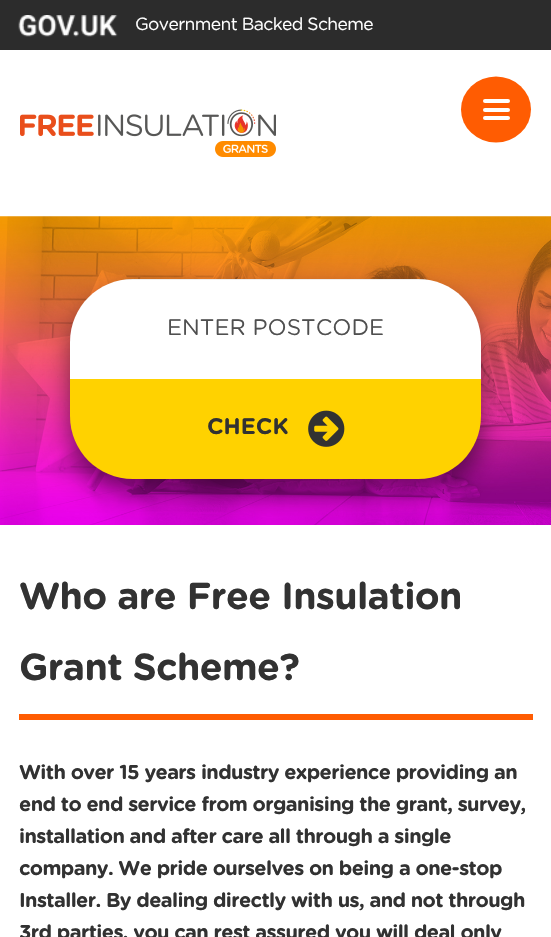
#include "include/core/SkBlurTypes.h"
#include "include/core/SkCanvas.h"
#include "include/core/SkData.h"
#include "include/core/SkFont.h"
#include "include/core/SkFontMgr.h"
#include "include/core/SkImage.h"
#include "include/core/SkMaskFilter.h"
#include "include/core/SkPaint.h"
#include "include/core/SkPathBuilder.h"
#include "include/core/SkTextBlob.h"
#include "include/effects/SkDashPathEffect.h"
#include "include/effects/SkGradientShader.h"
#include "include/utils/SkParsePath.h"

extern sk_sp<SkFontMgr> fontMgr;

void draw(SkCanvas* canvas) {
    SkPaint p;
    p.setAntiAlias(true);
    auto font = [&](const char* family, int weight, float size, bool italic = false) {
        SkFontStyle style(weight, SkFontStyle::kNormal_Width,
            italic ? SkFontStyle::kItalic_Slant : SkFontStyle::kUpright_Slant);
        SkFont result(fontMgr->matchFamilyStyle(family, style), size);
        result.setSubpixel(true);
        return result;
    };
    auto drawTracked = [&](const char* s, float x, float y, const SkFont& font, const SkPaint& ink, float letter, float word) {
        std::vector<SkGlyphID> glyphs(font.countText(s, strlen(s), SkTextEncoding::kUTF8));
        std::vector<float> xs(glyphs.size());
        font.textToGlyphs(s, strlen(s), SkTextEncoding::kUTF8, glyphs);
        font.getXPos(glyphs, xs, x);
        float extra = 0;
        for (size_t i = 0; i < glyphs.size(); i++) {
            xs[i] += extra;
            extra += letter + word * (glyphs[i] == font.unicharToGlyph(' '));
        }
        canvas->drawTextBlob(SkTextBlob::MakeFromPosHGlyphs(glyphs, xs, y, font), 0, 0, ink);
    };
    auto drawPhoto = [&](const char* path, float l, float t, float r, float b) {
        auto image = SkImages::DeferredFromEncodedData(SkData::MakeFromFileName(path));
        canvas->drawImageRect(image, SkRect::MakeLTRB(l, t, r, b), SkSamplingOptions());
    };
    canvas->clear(0xFFFFFFFF);
    p.setColor(0xFF2C2C2C);
    canvas->drawRect(SkRect::MakeLTRB(0, 0, 551, 50), p);
    drawPhoto("media/1.png", 18, 15, 118, 37);
    auto font1 = font("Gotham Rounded", 400, 17.5f);
    p.setColor(0xFFFFFFFF);
    drawTracked("Government Backed Scheme", 135, 30, font1, p, -0.62f, 0);
    drawPhoto("media/2.png", 20, 109, 276, 157);
    p.setColor(0xFFFF5C02);
    canvas->drawOval(SkRect::MakeLTRB(461, 76.5f, 531, 142.5f), p);
    p.setColor(0xFFFFFFFF);
    canvas->drawRoundRect(SkRect::MakeLTRB(483, 99, 510, 103), 2, 2, p);
    canvas->drawRoundRect(SkRect::MakeLTRB(483, 108, 510, 112), 2, 2, p);
    canvas->drawRoundRect(SkRect::MakeLTRB(483, 116, 510, 120), 2, 2, p);
    drawPhoto("media/3.png", 0, 216, 551, 525);
    p.setColor(0x85000000);
    p.setMaskFilter(SkMaskFilter::MakeBlur(kNormal_SkBlurStyle, 13));
    canvas->drawRoundRect(SkRect::MakeLTRB(70, 294, 481, 494), 63, 63, p);
    p.setMaskFilter(nullptr);
    p.setColor(0xFFFFFFFF);
    canvas->drawPath(SkPathBuilder().moveTo(133, 279).lineTo(418, 279).cubicTo(453, 279, 481, 307, 481, 342).lineTo(481, 379).lineTo(70, 379).lineTo(70, 342).cubicTo(70, 307, 98, 279, 133, 279).close().detach(), p);
    canvas->save();
    canvas->clipPath(SkPathBuilder().moveTo(133, 279).lineTo(418, 279).cubicTo(453, 279, 481, 307, 481, 342).lineTo(481, 416).cubicTo(481, 451, 453, 479, 418, 479).lineTo(133, 479).cubicTo(98, 479, 70, 451, 70, 416).lineTo(70, 342).cubicTo(70, 307, 98, 279, 133, 279).close().detach(), true);
    p.setColor(0x12000000);
    canvas->drawRect(SkRect::MakeLTRB(123, 279, 428, 280), p);
    canvas->restore();
    auto font2 = font("Gotham Rounded", 400, 22.5f);
    p.setColor(0xFF4F4F4F);
    canvas->drawString("ENTER POSTCODE", 167, 335, font2, p);
    p.setColor(0xFFFFD200);
    canvas->drawPath(SkPathBuilder().moveTo(70, 379).lineTo(481, 379).lineTo(481, 416).cubicTo(481, 451, 453, 479, 418, 479).lineTo(133, 479).cubicTo(98, 479, 70, 451, 70, 416).close().detach(), p);
    auto font3 = font("Gotham Rounded", 700, 22.5f);
    p.setColor(0xFF323232);
    canvas->drawString("CHECK", 207, 434, font3, p);
    drawPhoto("media/4.png", 308, 410, 345, 447);
    p.setColor(0xFFFF5C02);
    canvas->drawRect(SkRect::MakeLTRB(19, 714, 533, 720), p);
    auto font4 = font("Gotham Rounded", 700, 37.5f);
    p.setColor(0xFF323232);
    drawTracked("Who are Free Insulation", 19, 609, font4, p, -0.62f, 0);
    drawTracked("Grant Scheme?", 19, 680, font4, p, -0.62f, 0);
    auto font5 = font("Gotham Rounded", 700, 20);
    {
        const struct { const char* s; float x, y; } items[] = {
            {"With over 15 years industry experience providing an", 19, 779},
            {"end to end service from organising the grant, survey,", 19, 811},
            {"installation and after care all through a single", 19, 843},
            {"company. We pride ourselves on being a one-stop", 19, 875},
            {"Installer. By dealing directly with us, and not through", 19, 907},
            {"3rd parties, you can rest assured you will deal only", 19, 939},
        };
        for (auto [s, x, y] : items) {
            drawTracked(s, x, y, font5, p, -0.62f, 0);
        }
    }
}
